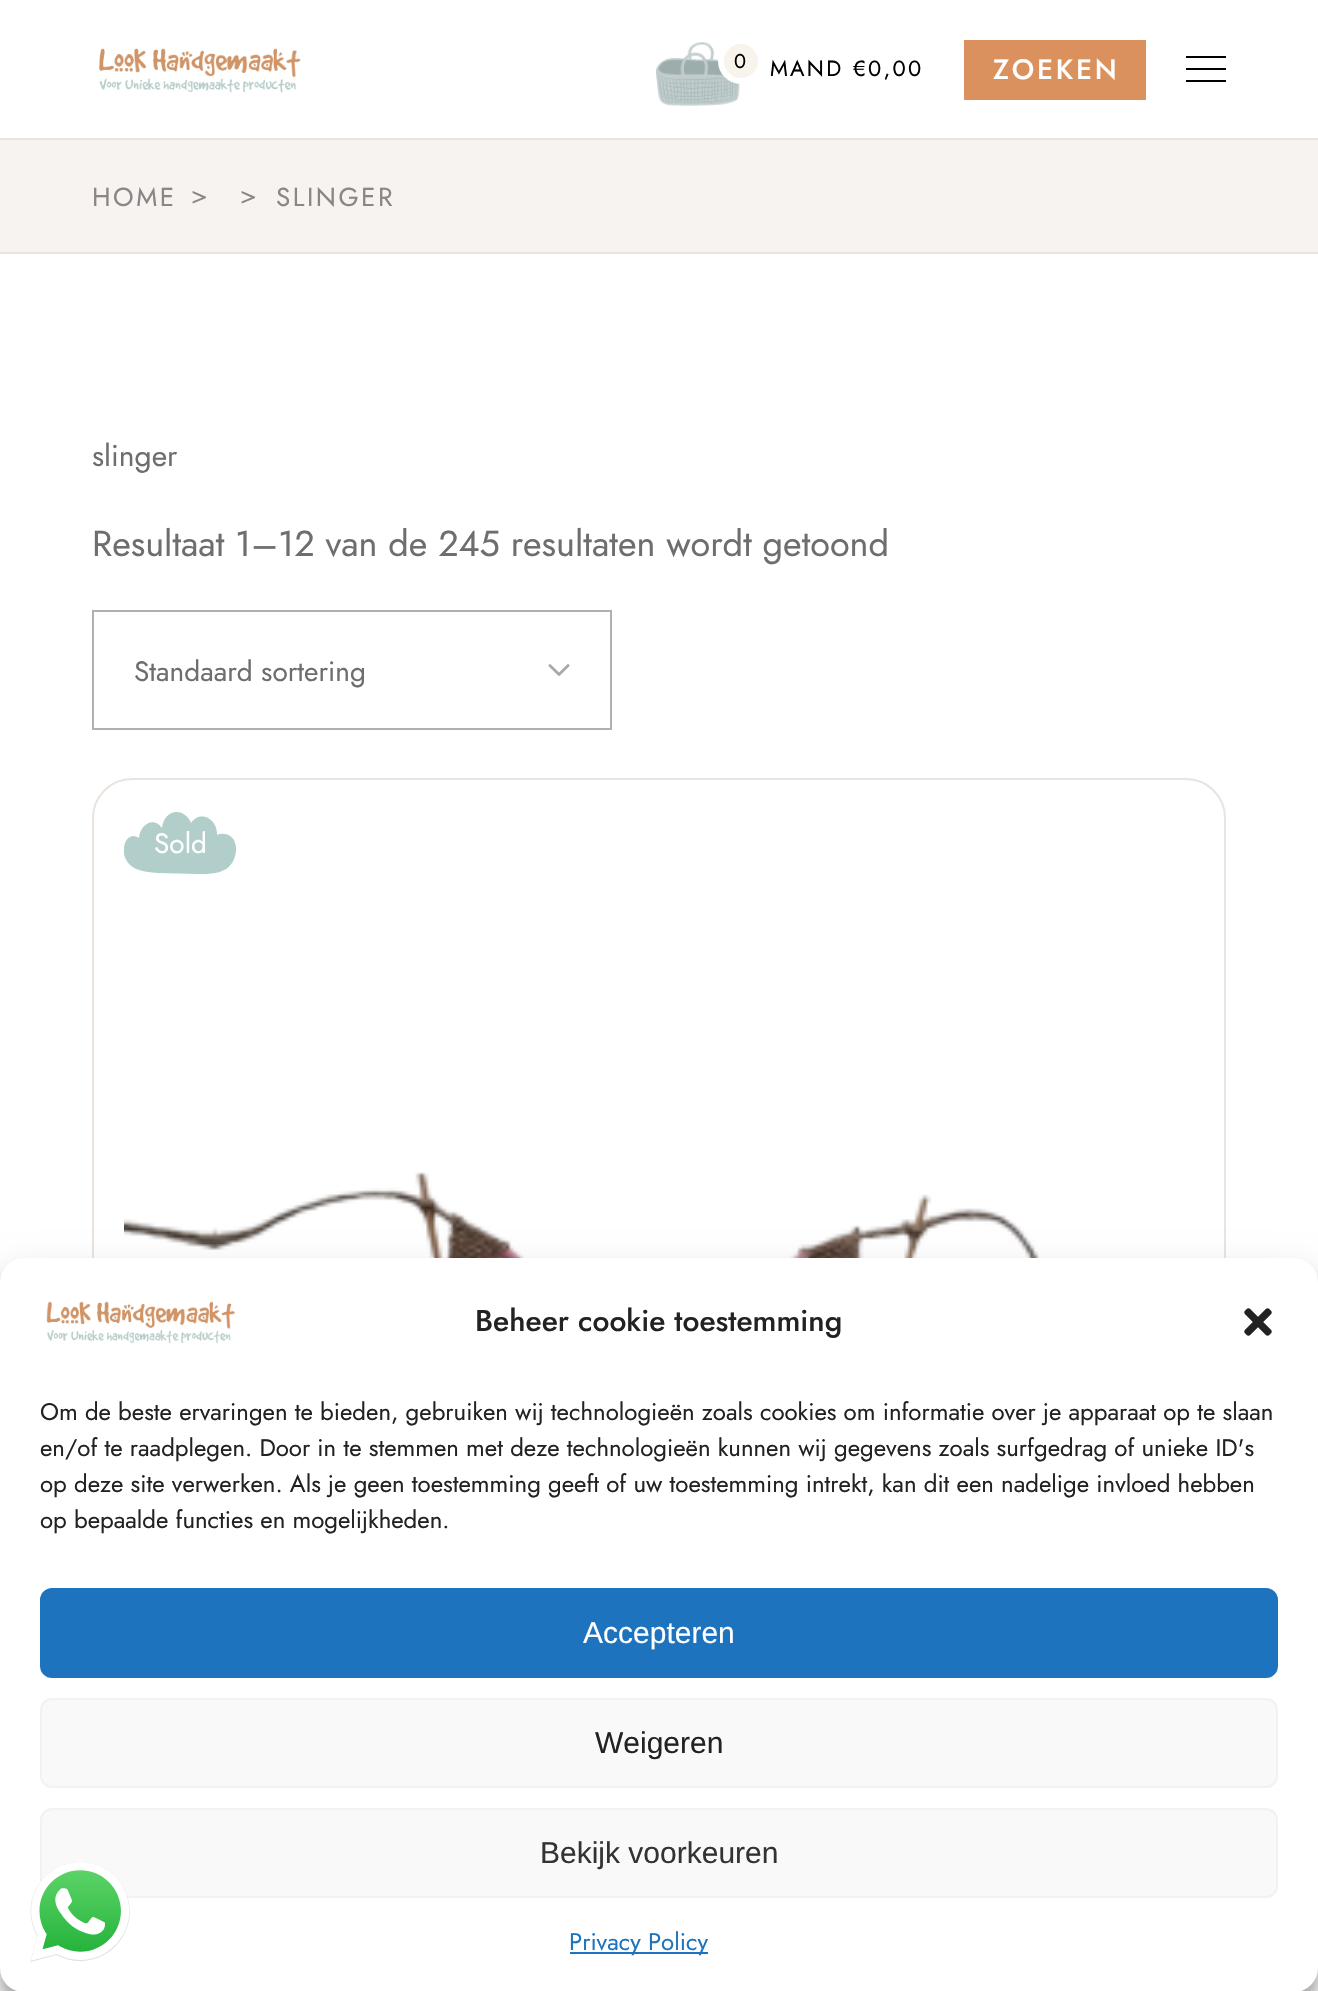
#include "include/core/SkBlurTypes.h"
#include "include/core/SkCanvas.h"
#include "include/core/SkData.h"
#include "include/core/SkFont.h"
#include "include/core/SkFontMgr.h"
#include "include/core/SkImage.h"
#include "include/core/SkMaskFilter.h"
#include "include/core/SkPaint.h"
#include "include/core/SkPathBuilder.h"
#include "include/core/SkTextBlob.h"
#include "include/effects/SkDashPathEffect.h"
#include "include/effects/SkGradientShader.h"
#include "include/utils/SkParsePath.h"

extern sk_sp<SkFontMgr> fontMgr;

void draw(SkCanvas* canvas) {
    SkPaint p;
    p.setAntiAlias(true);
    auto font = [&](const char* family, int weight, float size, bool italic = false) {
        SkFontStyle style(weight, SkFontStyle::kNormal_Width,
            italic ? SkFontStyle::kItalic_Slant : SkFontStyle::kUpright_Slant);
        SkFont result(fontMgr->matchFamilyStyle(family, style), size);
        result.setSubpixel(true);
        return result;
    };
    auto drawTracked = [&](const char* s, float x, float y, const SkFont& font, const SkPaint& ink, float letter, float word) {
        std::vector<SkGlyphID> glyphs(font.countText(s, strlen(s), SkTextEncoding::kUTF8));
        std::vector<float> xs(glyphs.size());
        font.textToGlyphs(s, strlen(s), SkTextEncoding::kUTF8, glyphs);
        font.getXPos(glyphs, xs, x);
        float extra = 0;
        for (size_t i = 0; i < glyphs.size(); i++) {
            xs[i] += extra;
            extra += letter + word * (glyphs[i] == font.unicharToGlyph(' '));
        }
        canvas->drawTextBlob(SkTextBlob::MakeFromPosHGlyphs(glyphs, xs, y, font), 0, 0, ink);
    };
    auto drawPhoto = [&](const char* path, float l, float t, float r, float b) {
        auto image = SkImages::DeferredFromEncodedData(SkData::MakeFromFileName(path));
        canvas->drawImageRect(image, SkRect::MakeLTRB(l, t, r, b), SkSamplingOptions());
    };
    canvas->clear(0xFFFFFFFF);
    p.setColor(0xFFEAE3DE);
    canvas->drawRect(SkRect::MakeLTRB(0, 138, 1318, 140), p);
    drawPhoto("media/1.png", 99, 48, 301, 93);
    drawPhoto("media/2.png", 656, 42, 740, 106);
    p.setColor(0xFFF8F4EC);
    canvas->drawCircle(741, 61, 20, p);
    p.setStyle(SkPaint::kStroke_Style);
    p.setStrokeWidth(6);
    p.setColor(0xFFFFFFFF);
    canvas->drawCircle(741, 61, 20, p);
    auto font1 = font("Jost", 400, 20);
    p.setStyle(SkPaint::kFill_Style);
    p.setColor(0xFF000000);
    drawTracked("0", 734, 68, font1, p, 2, 0);
    auto font2 = font("Jost", 400, 22);
    drawTracked("MAND", 770, 76, font2, p, 2.25f, 0);
    drawTracked("€0,00", 853, 76, font2, p, 2.25f, 0);
    p.setColor(0xFFDB915E);
    canvas->drawRect(SkRect::MakeLTRB(964, 40, 1146, 100), p);
    auto font3 = font("Jost", 500, 28);
    p.setColor(0xFFFFFFFF);
    drawTracked("ZOEKEN", 993, 79, font3, p, 2.75f, 0);
    {
        const struct { float l, t, r, b; SkColor color; } items[] = {
            {1186, 56, 1226, 58, 0xFF000000},
            {1186, 68, 1226, 70, 0xFF000000},
            {1186, 80, 1226, 82, 0xFF000000},
            {0, 140, 1318, 252, 0xFFF7F3F0},
            {0, 252, 1318, 254, 0xFFEAE3DE},
        };
        for (auto [l, t, r, b, color] : items) {
            p.setColor(color);
            canvas->drawRect(SkRect::MakeLTRB(l, t, r, b), p);
        }
    }
    auto font4 = font("Jost", 400, 26);
    p.setColor(0xFF8B8686);
    {
        const struct { const char* s; float x, y; } items[] = {
            {"HOME", 92, 206},
            {">", 191, 204},
            {">", 240, 204},
            {"SLINGER", 276, 206},
        };
        for (auto [s, x, y] : items) {
            drawTracked(s, x, y, font4, p, 2.5f, 0);
        }
    }
    auto font5 = font("Jost", 400, 30);
    p.setColor(0xFF6E6E6E);
    canvas->drawString("slinger", 92, 466, font5, p);
    auto font6 = font("Jost", 400, 36);
    canvas->drawString("Resultaat 1–12 van de 245 resultaten wordt getoond", 92, 556, font6, p);
    drawPhoto("media/3.png", 548, 664, 570, 676);
    p.setStyle(SkPaint::kStroke_Style);
    p.setStrokeWidth(2);
    p.setColor(0xFFB5AEAE);
    canvas->drawRect(SkRect::MakeLTRB(93, 611, 611, 729), p);
    auto font7 = font("Jost", 400, 28);
    p.setStyle(SkPaint::kFill_Style);
    p.setColor(0xFF6E6E6E);
    canvas->drawString("Standaard sortering", 134, 681, font7, p);
    p.setStyle(SkPaint::kStroke_Style);
    p.setColor(0xFFEAE3DE);
    canvas->drawRoundRect(SkRect::MakeLTRB(93, 779, 1225, 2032), 39, 39, p);
    canvas->save();
    canvas->clipRect(SkRect::MakeLTRB(124, 812, 236, 874));
    p.setStyle(SkPaint::kFill_Style);
    p.setColor(0xFFB1CECA);
    canvas->drawPath(SkPathBuilder().moveTo(235, 843).cubicTo(233, 835, 224, 832, 217, 835).cubicTo(218, 820, 201, 809, 191, 823).cubicTo(190, 820, 188, 817, 185, 815).cubicTo(174, 807, 163, 816, 162, 828).cubicTo(153, 816, 140, 825, 139, 838).cubicTo(138, 837, 135, 836, 133, 836).cubicTo(125, 837, 123, 847, 124, 854).cubicTo(128, 871, 145, 872, 158, 873).lineTo(198, 874).cubicTo(212, 874, 228, 874, 234, 859).cubicTo(236, 854, 237, 848, 235, 843).close().detach(), p);
    canvas->restore();
    p.setColor(0xFFFFFFFF);
    canvas->drawString("Sold", 154, 853, font7, p);
    drawPhoto("media/4.png", 124, 1172, 1064, 1258);
    p.setColor(0x3B000000);
    p.setMaskFilter(SkMaskFilter::MakeBlur(kNormal_SkBlurStyle, 6));
    canvas->drawRoundRect(SkRect::MakeLTRB(0, 1270, 1318, 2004), 24, 24, p);
    p.setMaskFilter(nullptr);
    p.setColor(0x30000000);
    p.setMaskFilter(SkMaskFilter::MakeBlur(kNormal_SkBlurStyle, 20));
    canvas->drawRoundRect(SkRect::MakeLTRB(0, 1278, 1318, 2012), 24, 24, p);
    p.setMaskFilter(nullptr);
    p.setColor(0xFF808080);
    p.setMaskFilter(SkMaskFilter::MakeBlur(kNormal_SkBlurStyle, 5));
    canvas->drawRoundRect(SkRect::MakeLTRB(1178, 1844, 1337, 1964), 4, 4, p);
    p.setMaskFilter(nullptr);
    p.setColor(0xFFFFFFFF);
    canvas->drawRoundRect(SkRect::MakeLTRB(0, 1258, 1318, 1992), 24, 24, p);
    drawPhoto("media/5.png", 46, 1301, 235, 1344);
    auto font8 = font("Jost", 500, 30);
    p.setColor(0xFF222222);
    canvas->drawString("Beheer cookie toestemming", 475, 1331, font8, p);
    drawPhoto("media/6.png", 1244, 1308, 1272, 1336);
    auto font9 = font("Jost", 400, 24);
    {
        const struct { const char* s; float x, y; } items[] = {
            {"Om de beste ervaringen te bieden, gebruiken wij technologieën zoals cookies om informatie over je apparaat op te slaan", 40, 1420},
            {"en/of te raadplegen. Door in te stemmen met deze technologieën kunnen wij gegevens zoals surfgedrag of unieke ID's", 40, 1456},
            {"op deze site verwerken. Als je geen toestemming geeft of uw toestemming intrekt, kan dit een nadelige invloed hebben", 40, 1492},
            {"op bepaalde functies en mogelijkheden.", 40, 1528},
        };
        for (auto [s, x, y] : items) {
            canvas->drawString(s, x, y, font9, p);
        }
    }
    p.setColor(0xFF1E73BE);
    canvas->drawRoundRect(SkRect::MakeLTRB(41, 1589, 1277, 1677), 11, 11, p);
    p.setStyle(SkPaint::kStroke_Style);
    canvas->drawRoundRect(SkRect::MakeLTRB(41, 1589, 1277, 1677), 11, 11, p);
    auto font10 = font("Liberation Sans", 400, 30);
    p.setStyle(SkPaint::kFill_Style);
    p.setColor(0xFFFFFFFF);
    canvas->drawString("Accepteren", 583, 1643, font10, p);
    p.setColor(0xFFF9F9F9);
    canvas->drawRoundRect(SkRect::MakeLTRB(41, 1699, 1277, 1787), 11, 11, p);
    p.setStyle(SkPaint::kStroke_Style);
    p.setColor(0xFFF2F2F2);
    canvas->drawRoundRect(SkRect::MakeLTRB(41, 1699, 1277, 1787), 11, 11, p);
    p.setStyle(SkPaint::kFill_Style);
    p.setColor(0xFF222222);
    canvas->drawString("Weigeren", 595, 1753, font10, p);
    p.setColor(0xFFF9F9F9);
    canvas->drawRoundRect(SkRect::MakeLTRB(41, 1809, 1277, 1897), 11, 11, p);
    p.setStyle(SkPaint::kStroke_Style);
    p.setColor(0xFFF2F2F2);
    canvas->drawRoundRect(SkRect::MakeLTRB(41, 1809, 1277, 1897), 11, 11, p);
    p.setStyle(SkPaint::kFill_Style);
    p.setColor(0xFF333333);
    canvas->drawString("Bekijk voorkeuren", 540, 1863, font10, p);
    p.setColor(0xFF1E73BE);
    canvas->drawRect(SkRect::MakeLTRB(570, 1952, 708, 1954), p);
    canvas->drawString("Privacy Policy", 569, 1950, font9, p);
    drawPhoto("media/7.png", 30, 1862, 130, 1962);
}
